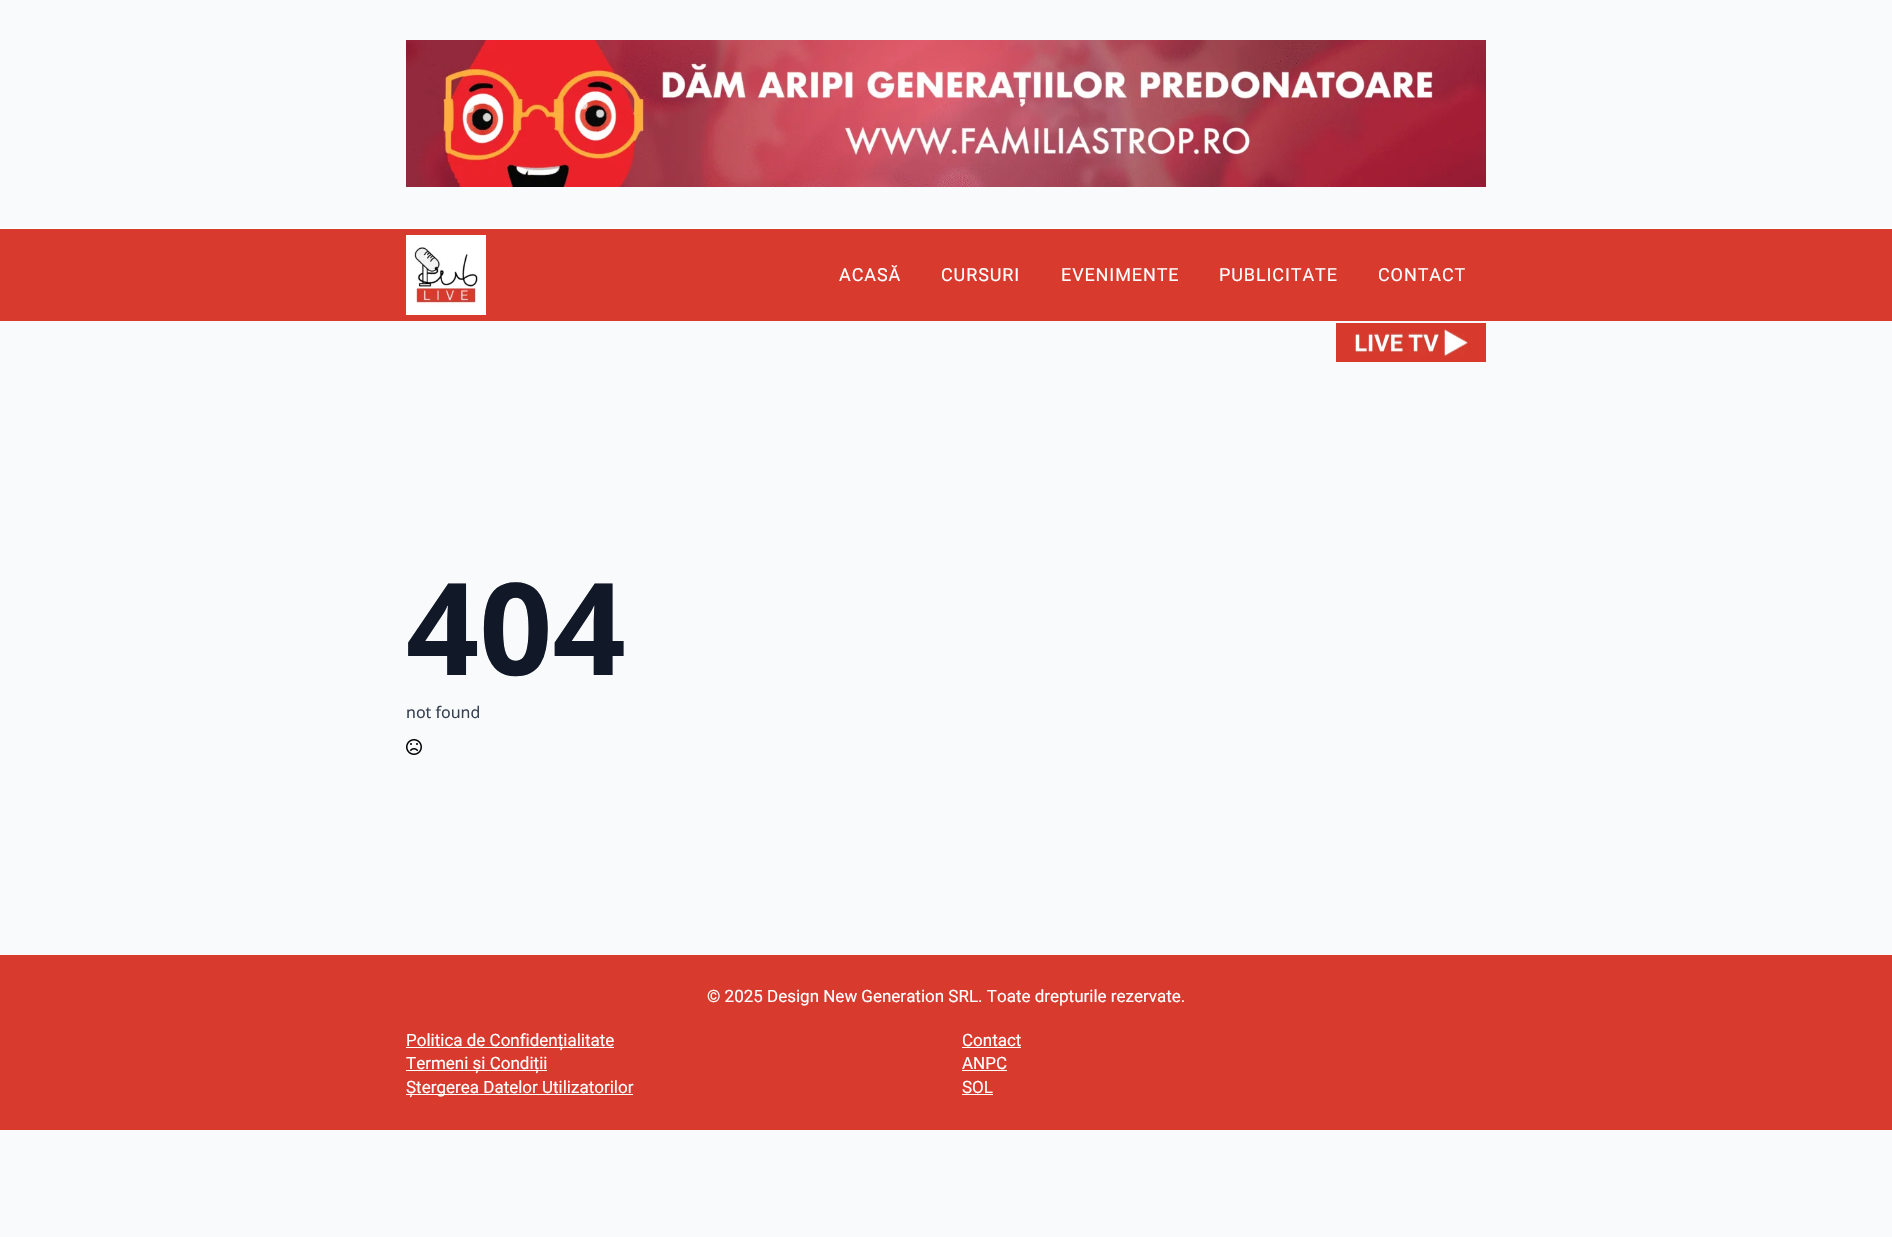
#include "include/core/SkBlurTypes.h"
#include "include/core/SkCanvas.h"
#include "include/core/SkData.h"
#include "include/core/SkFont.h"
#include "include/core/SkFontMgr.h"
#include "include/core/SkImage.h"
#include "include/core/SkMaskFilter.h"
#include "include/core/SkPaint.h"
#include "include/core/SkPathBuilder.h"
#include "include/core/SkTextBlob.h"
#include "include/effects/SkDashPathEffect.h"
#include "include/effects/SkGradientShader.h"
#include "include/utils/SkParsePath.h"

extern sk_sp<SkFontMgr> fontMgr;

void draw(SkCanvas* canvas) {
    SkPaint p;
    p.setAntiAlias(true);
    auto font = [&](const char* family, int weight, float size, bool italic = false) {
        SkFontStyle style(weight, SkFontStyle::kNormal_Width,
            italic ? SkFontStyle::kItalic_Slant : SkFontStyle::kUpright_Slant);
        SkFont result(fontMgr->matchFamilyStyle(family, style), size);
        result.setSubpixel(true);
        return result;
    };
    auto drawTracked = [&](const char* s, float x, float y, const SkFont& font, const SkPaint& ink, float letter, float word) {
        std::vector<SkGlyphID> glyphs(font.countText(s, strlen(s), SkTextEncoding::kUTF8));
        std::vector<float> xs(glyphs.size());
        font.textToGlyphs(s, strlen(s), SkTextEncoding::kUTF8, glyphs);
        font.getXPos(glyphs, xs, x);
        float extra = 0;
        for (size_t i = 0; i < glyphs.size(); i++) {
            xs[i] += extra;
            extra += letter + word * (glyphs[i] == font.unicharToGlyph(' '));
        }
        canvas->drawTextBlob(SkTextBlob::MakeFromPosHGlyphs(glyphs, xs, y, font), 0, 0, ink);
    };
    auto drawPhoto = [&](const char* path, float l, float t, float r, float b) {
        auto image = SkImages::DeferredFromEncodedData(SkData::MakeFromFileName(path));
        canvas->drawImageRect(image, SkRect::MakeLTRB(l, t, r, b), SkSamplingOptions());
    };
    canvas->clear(0xFFF9FAFB);
    drawPhoto("media/1.png", 406, 40, 1486, 187);
    p.setColor(0xFFD83A2E);
    canvas->drawRect(SkRect::MakeLTRB(0, 229, 1892, 321), p);
    p.setColor(0xFFFFFFFF);
    canvas->drawRect(SkRect::MakeLTRB(0, 227, 1892, 229), p);
    drawPhoto("media/2.png", 406, 235, 486, 315);
    auto font1 = font("Roboto", 400, 18);
    {
        const struct { const char* s; float x, y; } items[] = {
            {"ACASĂ", 839, 281},
            {"CURSURI", 941, 281},
            {"EVENIMENTE", 1061, 281},
            {"PUBLICITATE", 1219, 281},
            {"CONTACT", 1378, 281},
        };
        for (auto [s, x, y] : items) {
            drawTracked(s, x, y, font1, p, 0.9f, 0);
        }
    }
    drawPhoto("media/3.png", 1336, 323, 1486, 362);
    auto font2 = font("Noto Sans", 700, 128);
    p.setColor(0xFF111827);
    canvas->drawString("404", 406, 675, font2, p);
    auto font3 = font("Noto Sans", 400, 16);
    p.setColor(0xFF374151);
    canvas->drawString("not found", 406, 718, font3, p);
    drawPhoto("media/4.png", 406, 739, 422, 755);
    p.setColor(0xFFD83A2E);
    canvas->drawRect(SkRect::MakeLTRB(0, 955, 1892, 1130), p);
    auto font4 = font("Roboto", 400, 17);
    p.setColor(0xFFFFFFFF);
    canvas->drawString("© 2025 Design New Generation SRL. Toate drepturile rezervate.", 707, 1002, font4, p);
    canvas->drawRect(SkRect::MakeLTRB(406, 1047, 614, 1048), p);
    canvas->drawString("Politica de Confidențialitate", 406, 1046, font4, p);
    canvas->drawRect(SkRect::MakeLTRB(406, 1070, 547, 1071), p);
    canvas->drawString("Termeni și Condiții", 406, 1069, font4, p);
    canvas->drawRect(SkRect::MakeLTRB(406, 1094, 633, 1095), p);
    canvas->drawString("Ștergerea Datelor Utilizatorilor", 406, 1093, font4, p);
    canvas->drawString("Contact", 962, 1046, font4, p);
    canvas->drawRect(SkRect::MakeLTRB(962, 1047, 1021, 1048), p);
    canvas->drawString("ANPC", 962, 1069, font4, p);
    canvas->drawRect(SkRect::MakeLTRB(962, 1070, 1007, 1071), p);
    canvas->drawString("SOL", 962, 1093, font4, p);
    canvas->drawRect(SkRect::MakeLTRB(962, 1094, 993, 1095), p);
}
